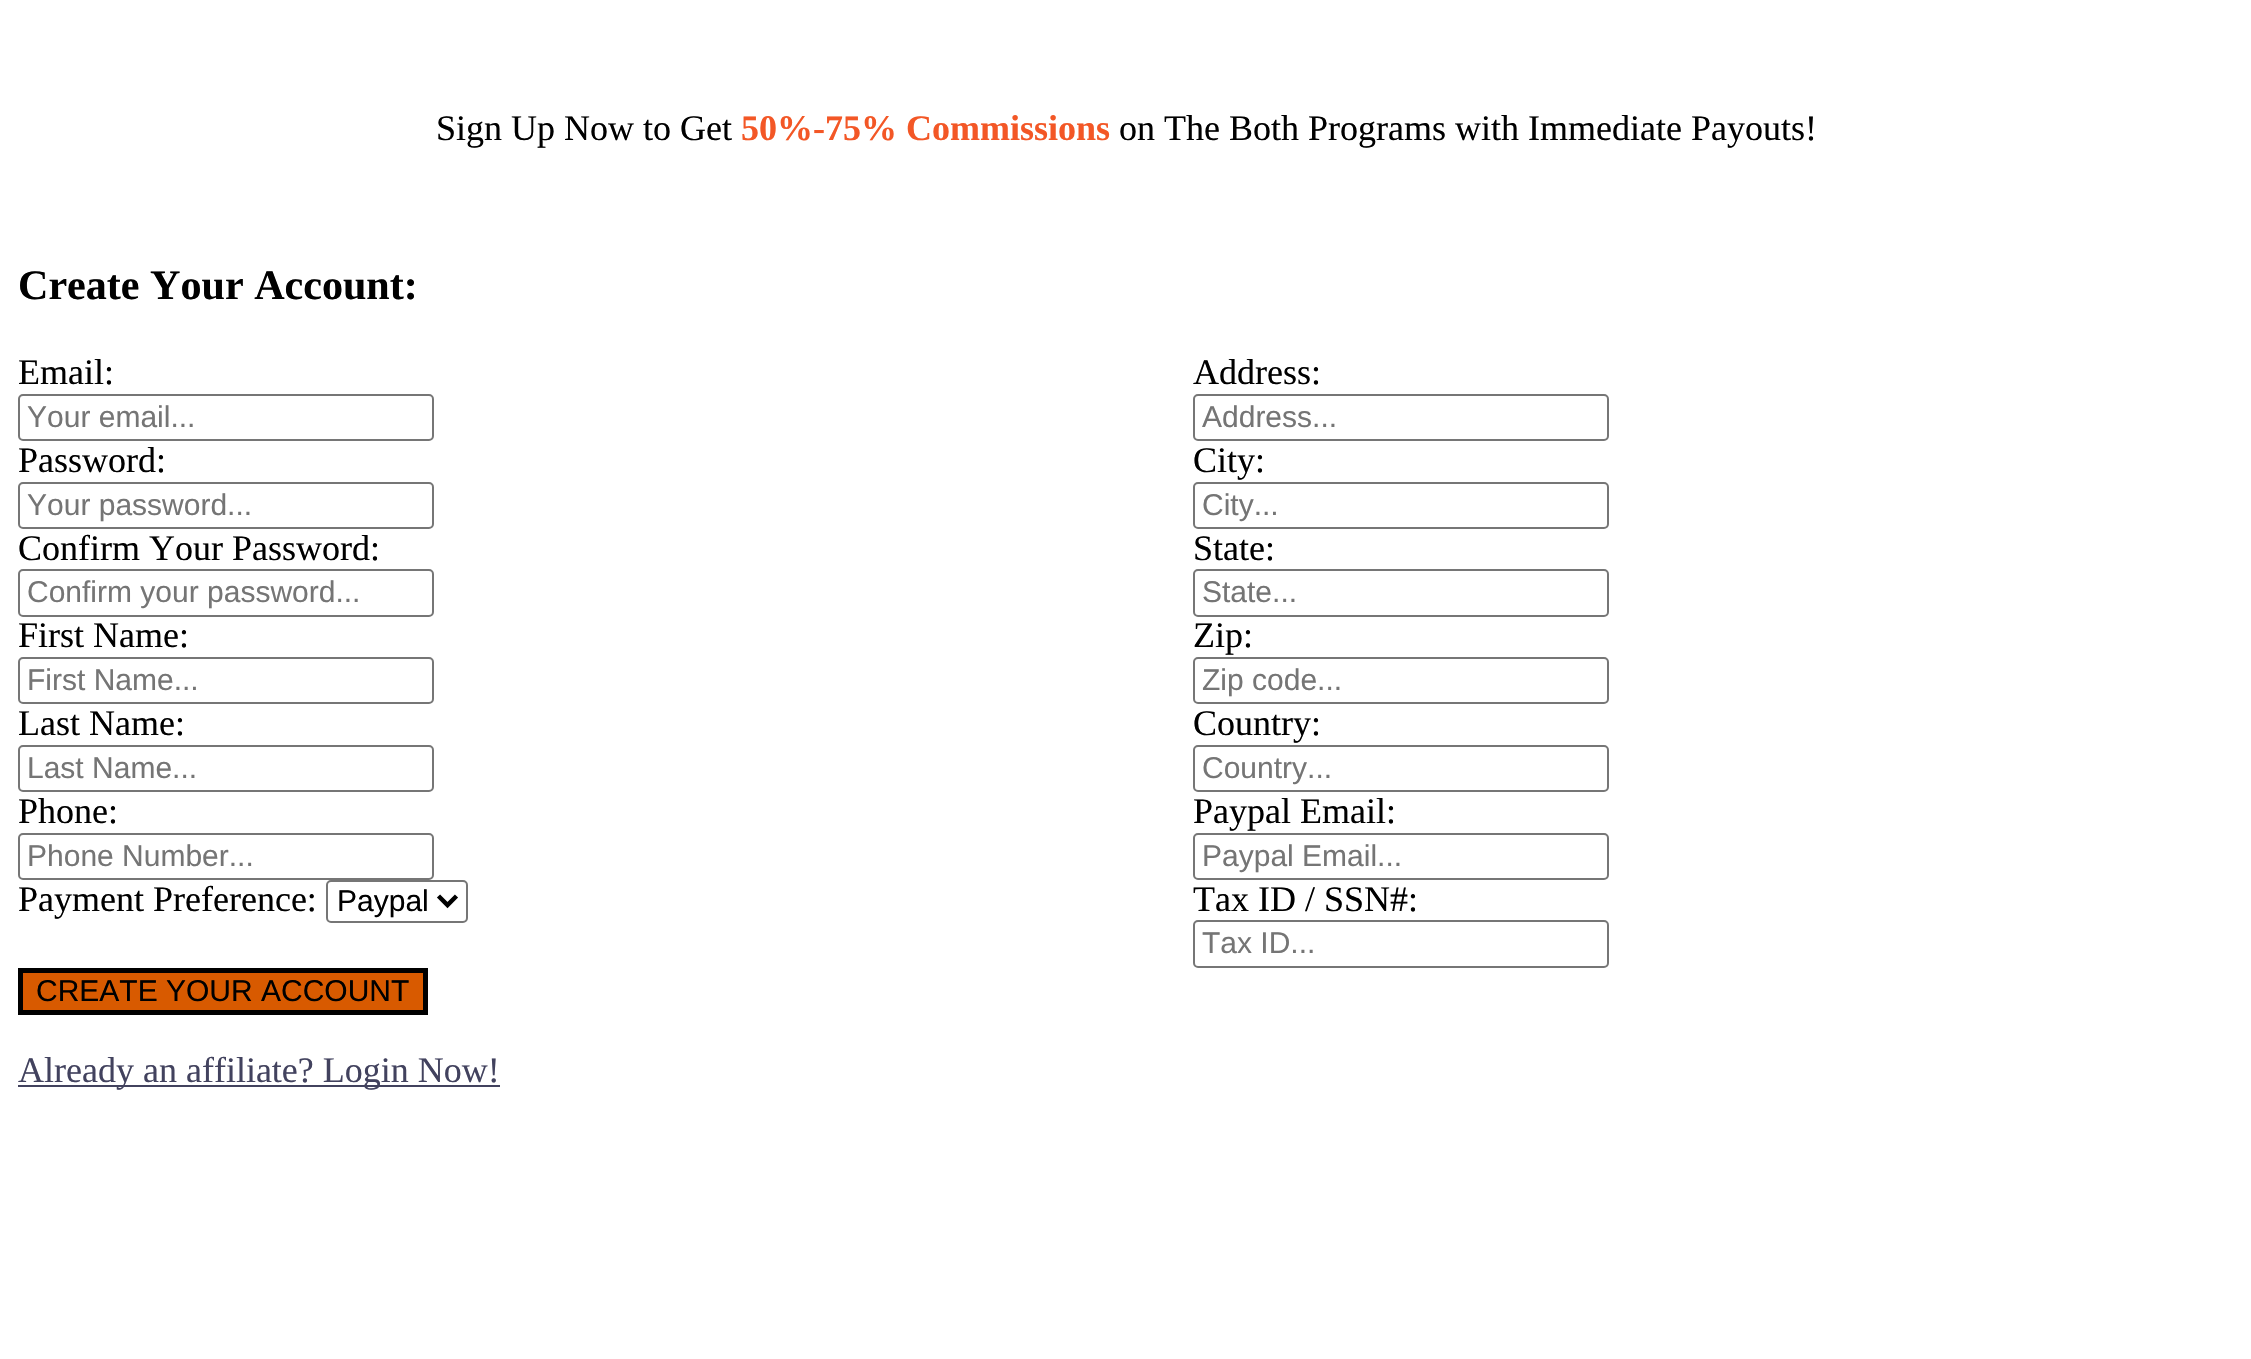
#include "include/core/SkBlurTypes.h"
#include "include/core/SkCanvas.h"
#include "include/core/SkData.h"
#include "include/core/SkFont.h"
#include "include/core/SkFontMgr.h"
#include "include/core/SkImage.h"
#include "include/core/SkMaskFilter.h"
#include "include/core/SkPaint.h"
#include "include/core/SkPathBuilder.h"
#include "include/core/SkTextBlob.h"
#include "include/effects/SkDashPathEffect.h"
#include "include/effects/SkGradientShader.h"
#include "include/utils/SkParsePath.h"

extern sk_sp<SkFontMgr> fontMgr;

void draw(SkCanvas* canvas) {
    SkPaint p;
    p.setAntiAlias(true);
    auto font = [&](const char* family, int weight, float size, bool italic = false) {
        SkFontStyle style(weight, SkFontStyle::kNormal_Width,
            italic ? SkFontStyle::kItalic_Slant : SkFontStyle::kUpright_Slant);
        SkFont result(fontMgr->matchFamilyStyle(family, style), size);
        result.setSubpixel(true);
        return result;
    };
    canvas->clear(0xFFFFFFFF);
    auto font1 = font("Liberation Serif", 400, 36);
    p.setColor(0xFF000000);
    canvas->drawString("Sign Up Now to Get", 436, 140, font1, p);
    auto font2 = font("Liberation Serif", 700, 36);
    p.setColor(0xFFF35726);
    canvas->drawString("50%-75% Commissions", 741, 140, font2, p);
    p.setColor(0xFF000000);
    canvas->drawString("on The Both Programs with Immediate Payouts!", 1119, 140, font1, p);
    auto font3 = font("Liberation Serif", 700, 42.1f);
    canvas->drawString("Create Your Account:", 18, 299, font3, p);
    canvas->drawString("Email:", 18, 384, font1, p);
    p.setStyle(SkPaint::kStroke_Style);
    p.setStrokeWidth(2);
    p.setColor(0xFF767676);
    canvas->drawRoundRect(SkRect::MakeLTRB(19, 395, 433, 440), 4, 4, p);
    auto font4 = font("Liberation Sans", 400, 30);
    p.setStyle(SkPaint::kFill_Style);
    p.setColor(0xFF757575);
    canvas->drawString("Your email...", 27, 427, font4, p);
    p.setColor(0xFF000000);
    canvas->drawString("Password:", 18, 472, font1, p);
    p.setStyle(SkPaint::kStroke_Style);
    p.setColor(0xFF767676);
    canvas->drawRoundRect(SkRect::MakeLTRB(19, 483, 433, 528), 4, 4, p);
    p.setStyle(SkPaint::kFill_Style);
    p.setColor(0xFF757575);
    canvas->drawString("Your password...", 27, 515, font4, p);
    p.setColor(0xFF000000);
    canvas->drawString("Confirm Your Password:", 18, 560, font1, p);
    p.setStyle(SkPaint::kStroke_Style);
    p.setColor(0xFF767676);
    canvas->drawRoundRect(SkRect::MakeLTRB(19, 570, 433, 616), 4, 4, p);
    p.setStyle(SkPaint::kFill_Style);
    p.setColor(0xFF757575);
    canvas->drawString("Confirm your password...", 27, 602, font4, p);
    p.setColor(0xFF000000);
    canvas->drawString("First Name:", 18, 647, font1, p);
    p.setStyle(SkPaint::kStroke_Style);
    p.setColor(0xFF767676);
    canvas->drawRoundRect(SkRect::MakeLTRB(19, 658, 433, 703), 4, 4, p);
    p.setStyle(SkPaint::kFill_Style);
    p.setColor(0xFF757575);
    canvas->drawString("First Name...", 27, 690, font4, p);
    p.setColor(0xFF000000);
    canvas->drawString("Last Name:", 18, 735, font1, p);
    p.setStyle(SkPaint::kStroke_Style);
    p.setColor(0xFF767676);
    canvas->drawRoundRect(SkRect::MakeLTRB(19, 746, 433, 791), 4, 4, p);
    p.setStyle(SkPaint::kFill_Style);
    p.setColor(0xFF757575);
    canvas->drawString("Last Name...", 27, 778, font4, p);
    p.setColor(0xFF000000);
    canvas->drawString("Phone:", 18, 823, font1, p);
    p.setStyle(SkPaint::kStroke_Style);
    p.setColor(0xFF767676);
    canvas->drawRoundRect(SkRect::MakeLTRB(19, 834, 433, 879), 4, 4, p);
    p.setStyle(SkPaint::kFill_Style);
    p.setColor(0xFF757575);
    canvas->drawString("Phone Number...", 27, 866, font4, p);
    p.setColor(0xFF000000);
    canvas->drawString("Payment Preference:", 18, 911, font1, p);
    p.setStyle(SkPaint::kStroke_Style);
    p.setColor(0xFF767676);
    canvas->drawRoundRect(SkRect::MakeLTRB(327, 881, 467, 922), 4, 4, p);
    p.setStrokeWidth(4.5f);
    p.setColor(0xFF000000);
    canvas->drawPath(SkPathBuilder().moveTo(438.5f, 896).lineTo(447.5f, 905).lineTo(456.5f, 896).detach(), p);
    p.setStyle(SkPaint::kFill_Style);
    canvas->drawString("Paypal", 337, 911, font4, p);
    canvas->drawString("Address:", 1193, 384, font1, p);
    p.setStyle(SkPaint::kStroke_Style);
    p.setStrokeWidth(2);
    p.setColor(0xFF767676);
    canvas->drawRoundRect(SkRect::MakeLTRB(1194, 395, 1608, 440), 4, 4, p);
    p.setStyle(SkPaint::kFill_Style);
    p.setColor(0xFF757575);
    canvas->drawString("Address...", 1202, 427, font4, p);
    p.setColor(0xFF000000);
    canvas->drawString("City:", 1193, 472, font1, p);
    p.setStyle(SkPaint::kStroke_Style);
    p.setColor(0xFF767676);
    canvas->drawRoundRect(SkRect::MakeLTRB(1194, 483, 1608, 528), 4, 4, p);
    p.setStyle(SkPaint::kFill_Style);
    p.setColor(0xFF757575);
    canvas->drawString("City...", 1202, 515, font4, p);
    p.setColor(0xFF000000);
    canvas->drawString("State:", 1193, 560, font1, p);
    p.setStyle(SkPaint::kStroke_Style);
    p.setColor(0xFF767676);
    canvas->drawRoundRect(SkRect::MakeLTRB(1194, 570, 1608, 616), 4, 4, p);
    p.setStyle(SkPaint::kFill_Style);
    p.setColor(0xFF757575);
    canvas->drawString("State...", 1202, 602, font4, p);
    p.setColor(0xFF000000);
    canvas->drawString("Zip:", 1193, 647, font1, p);
    p.setStyle(SkPaint::kStroke_Style);
    p.setColor(0xFF767676);
    canvas->drawRoundRect(SkRect::MakeLTRB(1194, 658, 1608, 703), 4, 4, p);
    p.setStyle(SkPaint::kFill_Style);
    p.setColor(0xFF757575);
    canvas->drawString("Zip code...", 1202, 690, font4, p);
    p.setColor(0xFF000000);
    canvas->drawString("Country:", 1193, 735, font1, p);
    p.setStyle(SkPaint::kStroke_Style);
    p.setColor(0xFF767676);
    canvas->drawRoundRect(SkRect::MakeLTRB(1194, 746, 1608, 791), 4, 4, p);
    p.setStyle(SkPaint::kFill_Style);
    p.setColor(0xFF757575);
    canvas->drawString("Country...", 1202, 778, font4, p);
    p.setColor(0xFF000000);
    canvas->drawString("Paypal Email:", 1193, 823, font1, p);
    p.setStyle(SkPaint::kStroke_Style);
    p.setColor(0xFF767676);
    canvas->drawRoundRect(SkRect::MakeLTRB(1194, 834, 1608, 879), 4, 4, p);
    p.setStyle(SkPaint::kFill_Style);
    p.setColor(0xFF757575);
    canvas->drawString("Paypal Email...", 1202, 866, font4, p);
    p.setColor(0xFF000000);
    canvas->drawString("Tax ID / SSN#:", 1193, 911, font1, p);
    p.setStyle(SkPaint::kStroke_Style);
    p.setColor(0xFF767676);
    canvas->drawRoundRect(SkRect::MakeLTRB(1194, 921, 1608, 967), 4, 4, p);
    p.setStyle(SkPaint::kFill_Style);
    p.setColor(0xFF757575);
    canvas->drawString("Tax ID...", 1202, 953, font4, p);
    p.setColor(0xFFD85A00);
    canvas->drawRect(SkRect::MakeLTRB(20.5f, 970.5f, 425.5f, 1012.5f), p);
    p.setStyle(SkPaint::kStroke_Style);
    p.setStrokeWidth(5);
    p.setColor(0xFF000000);
    canvas->drawRect(SkRect::MakeLTRB(20.5f, 970.5f, 425.5f, 1012.5f), p);
    p.setStyle(SkPaint::kFill_Style);
    canvas->drawString("CREATE YOUR ACCOUNT", 36, 1001, font4, p);
    p.setColor(0xFF42425E);
    canvas->drawRect(SkRect::MakeLTRB(18, 1085, 500, 1087), p);
    canvas->drawString("Already an affiliate? Login Now!", 18, 1082, font1, p);
}
